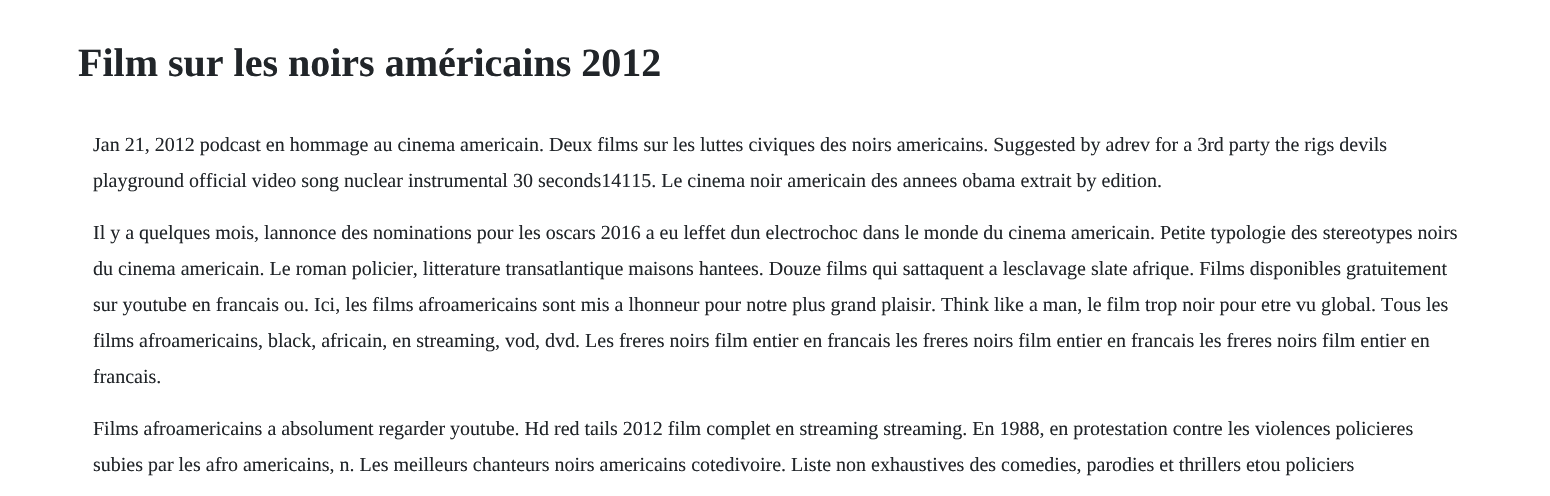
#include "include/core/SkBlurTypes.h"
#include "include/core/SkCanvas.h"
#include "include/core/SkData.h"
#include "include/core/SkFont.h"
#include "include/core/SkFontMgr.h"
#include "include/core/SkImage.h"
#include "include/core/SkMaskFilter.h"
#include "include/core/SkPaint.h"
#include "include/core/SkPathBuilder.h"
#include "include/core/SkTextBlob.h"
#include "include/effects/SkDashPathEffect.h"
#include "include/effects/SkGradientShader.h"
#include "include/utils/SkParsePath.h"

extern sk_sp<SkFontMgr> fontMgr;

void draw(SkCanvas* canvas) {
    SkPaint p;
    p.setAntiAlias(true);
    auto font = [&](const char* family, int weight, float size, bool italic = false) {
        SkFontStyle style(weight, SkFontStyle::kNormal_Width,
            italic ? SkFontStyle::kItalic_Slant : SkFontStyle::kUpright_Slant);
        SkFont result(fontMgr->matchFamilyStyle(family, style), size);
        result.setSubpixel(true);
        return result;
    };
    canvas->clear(0xFFFFFFFF);
    auto font1 = font("Liberation Serif", 700, 40);
    p.setColor(0xFF212529);
    canvas->drawString("Film sur les noirs américains 2012", 78, 76, font1, p);
    auto font2 = font("Liberation Serif", 400, 20);
    {
        const struct { const char* s; float x, y; } items[] = {
            {"Jan 21, 2012 podcast en hommage au cinema americain. Deux films sur les luttes civiques des noirs americains. Suggested by adrev for a 3rd party the rigs devils", 93, 151},
            {"playground official video song nuclear instrumental 30 seconds14115. Le cinema noir americain des annees obama extrait by edition.", 93, 187},
            {"Il y a quelques mois, lannonce des nominations pour les oscars 2016 a eu leffet dun electrochoc dans le monde du cinema americain. Petite typologie des stereotypes noirs", 93, 239},
            {"du cinema americain. Le roman policier, litterature transatlantique maisons hantees. Douze films qui sattaquent a lesclavage slate afrique. Films disponibles gratuitement", 93, 275},
            {"sur youtube en francais ou. Ici, les films afroamericains sont mis a lhonneur pour notre plus grand plaisir. Think like a man, le film trop noir pour etre vu global. Tous les", 93, 311},
            {"films afroamericains, black, africain, en streaming, vod, dvd. Les freres noirs film entier en francais les freres noirs film entier en francais les freres noirs film entier en", 93, 347},
            {"francais.", 93, 383},
            {"Films afroamericains a absolument regarder youtube. Hd red tails 2012 film complet en streaming streaming. En 1988, en protestation contre les violences policieres", 93, 435},
            {"subies par les afro americains, n. Les meilleurs chanteurs noirs americains cotedivoire. Liste non exhaustives des comedies, parodies et thrillers etou policiers", 93, 471},
        };
        for (auto [s, x, y] : items) {
            canvas->drawString(s, x, y, font2, p);
        }
    }
}
